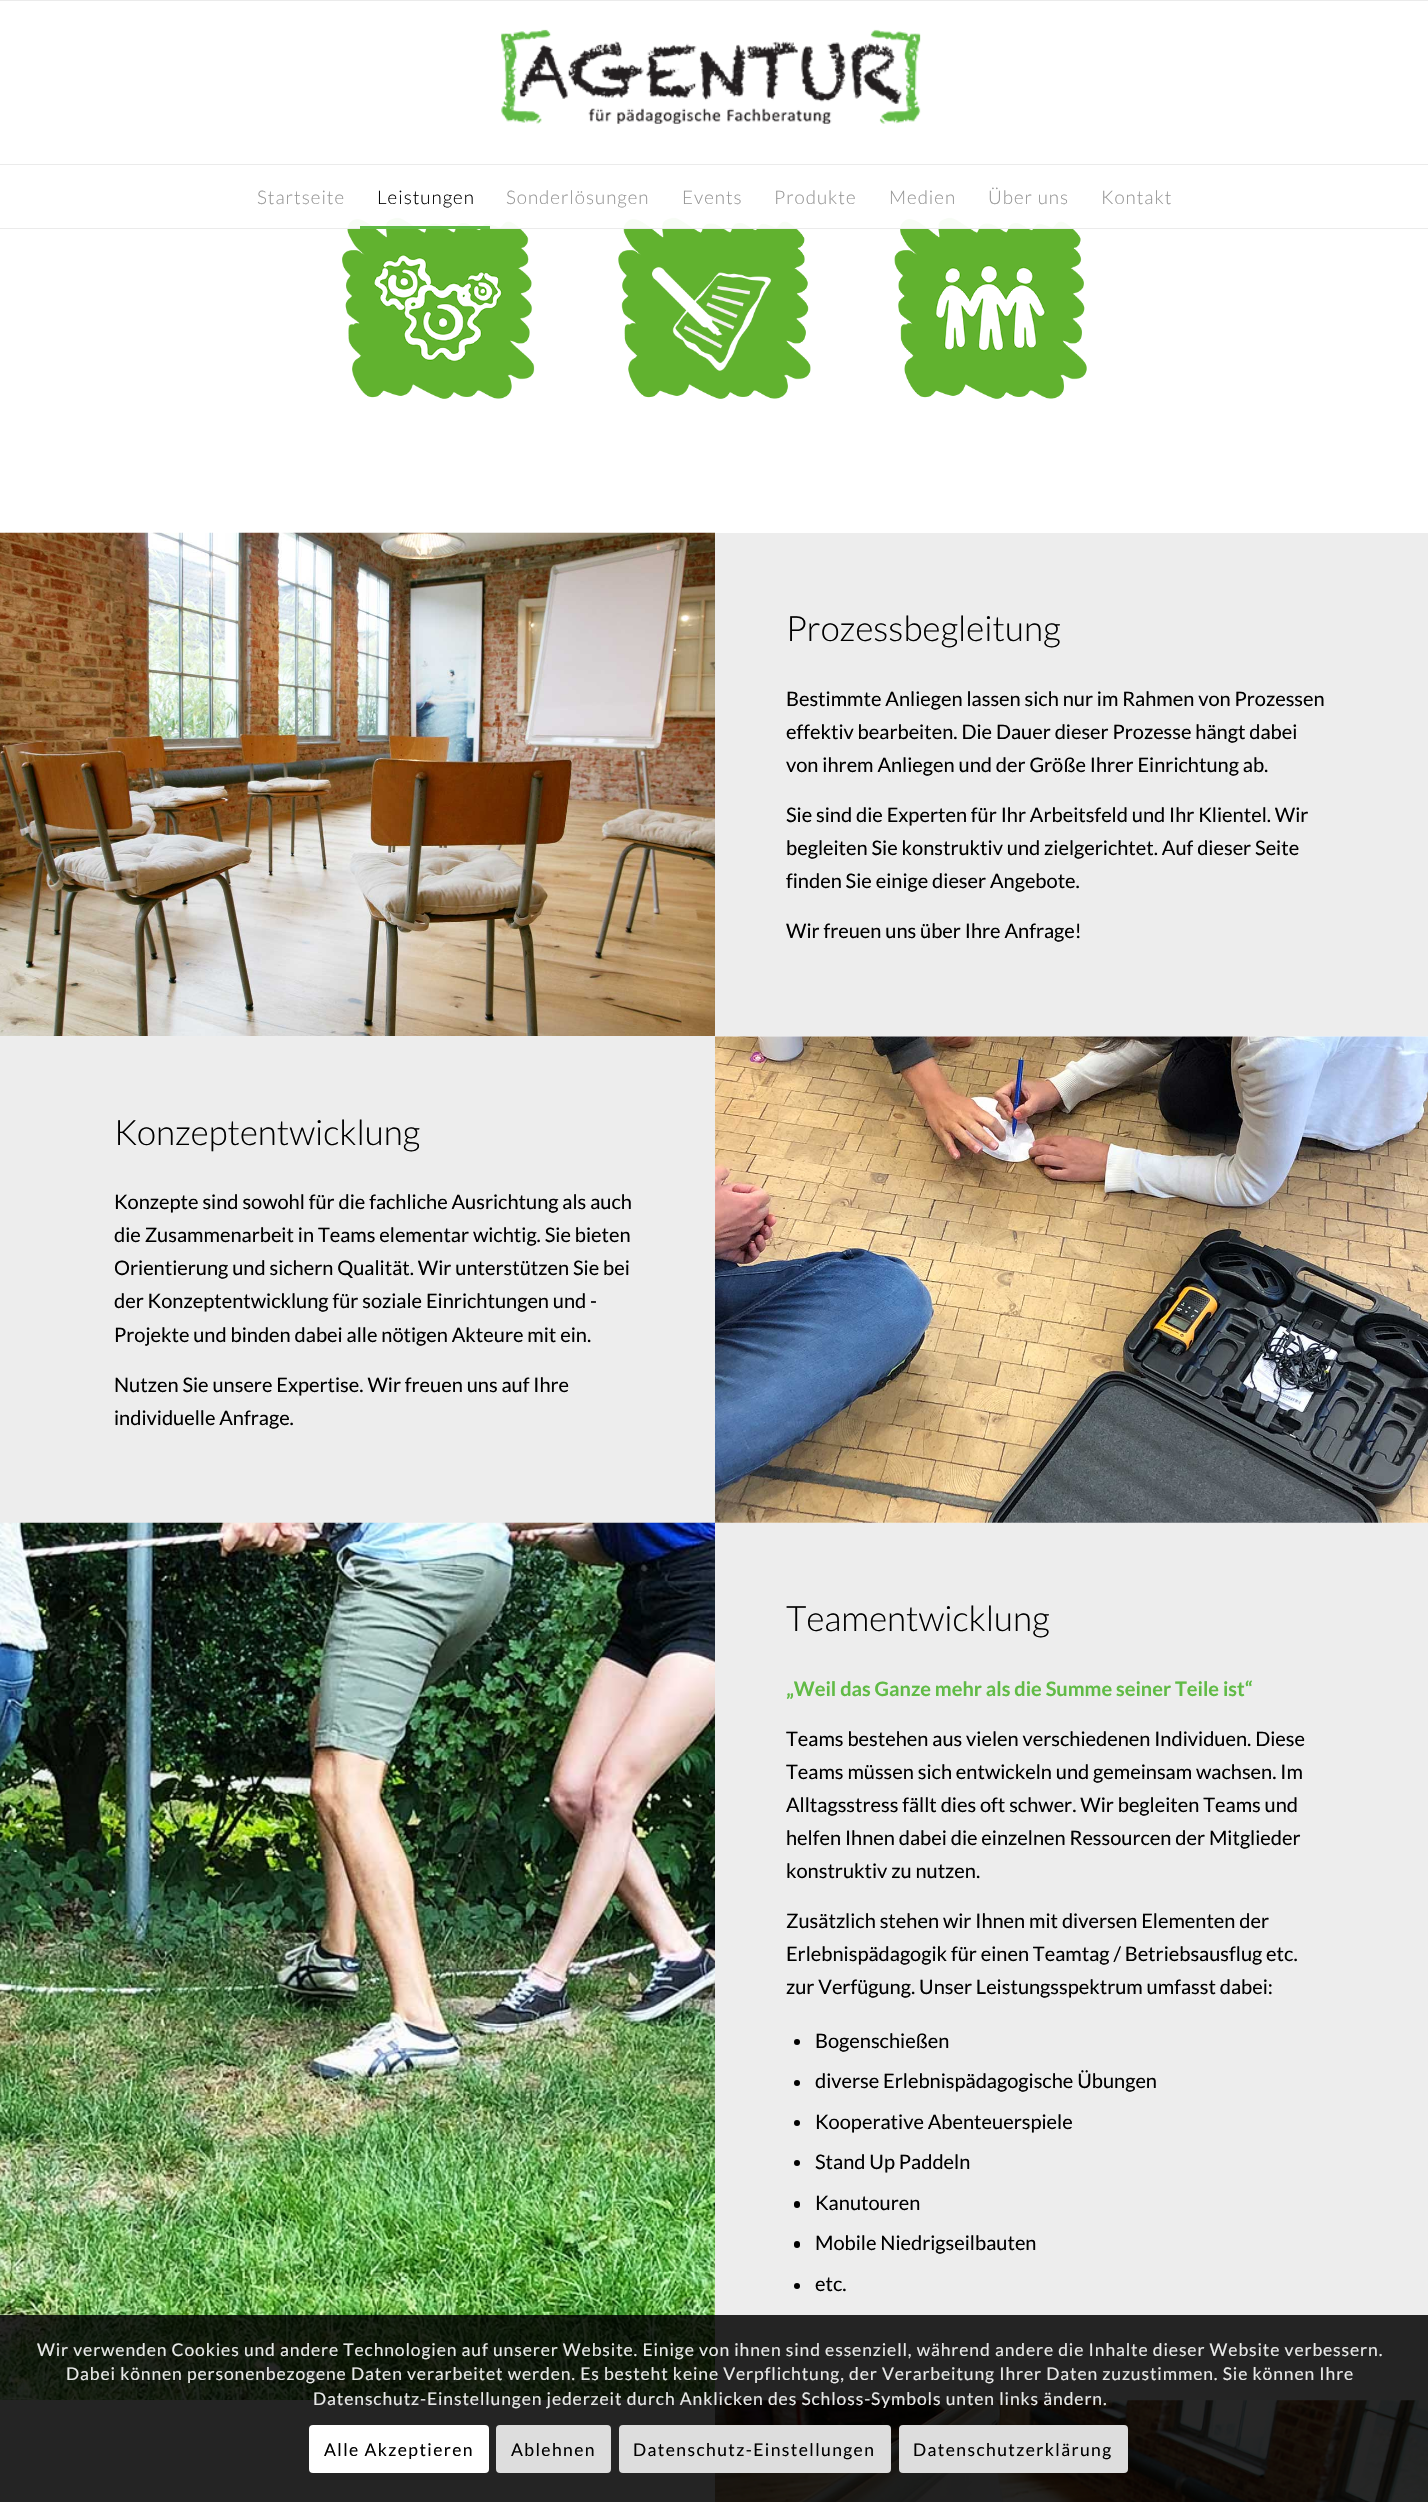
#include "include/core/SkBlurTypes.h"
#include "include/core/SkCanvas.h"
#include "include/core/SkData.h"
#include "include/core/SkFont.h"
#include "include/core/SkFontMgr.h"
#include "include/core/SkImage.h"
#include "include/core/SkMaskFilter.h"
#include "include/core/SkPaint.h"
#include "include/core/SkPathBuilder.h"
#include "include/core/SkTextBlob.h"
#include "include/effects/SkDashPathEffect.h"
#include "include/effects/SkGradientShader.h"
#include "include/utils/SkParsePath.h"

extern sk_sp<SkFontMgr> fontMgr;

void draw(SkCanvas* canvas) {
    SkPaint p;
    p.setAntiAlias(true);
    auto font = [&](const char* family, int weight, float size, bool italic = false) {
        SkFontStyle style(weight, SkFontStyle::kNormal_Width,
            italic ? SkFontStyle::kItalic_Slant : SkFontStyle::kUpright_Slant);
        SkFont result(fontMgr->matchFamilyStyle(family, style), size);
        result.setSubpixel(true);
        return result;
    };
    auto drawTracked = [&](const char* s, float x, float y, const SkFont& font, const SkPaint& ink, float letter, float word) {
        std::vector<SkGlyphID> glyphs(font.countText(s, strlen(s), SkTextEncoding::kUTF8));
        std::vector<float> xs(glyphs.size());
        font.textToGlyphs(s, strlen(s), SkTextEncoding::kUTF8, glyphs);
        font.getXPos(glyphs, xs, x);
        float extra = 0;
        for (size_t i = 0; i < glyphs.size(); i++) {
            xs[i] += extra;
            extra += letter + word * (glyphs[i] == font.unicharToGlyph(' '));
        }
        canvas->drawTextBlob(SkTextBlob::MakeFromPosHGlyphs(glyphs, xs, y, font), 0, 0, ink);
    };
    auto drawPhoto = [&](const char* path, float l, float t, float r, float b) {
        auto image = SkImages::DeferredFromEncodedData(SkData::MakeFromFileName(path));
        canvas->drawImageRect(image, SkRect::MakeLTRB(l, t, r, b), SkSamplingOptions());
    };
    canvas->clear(0xFFFFFFFF);
    p.setColor(0xFFF4F4F4);
    canvas->drawRect(SkRect::MakeLTRB(0, 1, 1428, 146), p);
    drawPhoto("media/2.png", 342, 217, 535, 399);
    drawPhoto("media/3.png", 618, 217, 811, 399);
    drawPhoto("media/4.png", 894, 217, 1087, 399);
    {
        const struct { float l, t, r, b; SkColor color; } items[] = {
            {0, 1, 1428, 228, 0xF2FFFFFF},
            {0, 0, 1428, 1, 0xFFEBEBEB},
            {0, 228, 1428, 229, 0xFFEBEBEB},
        };
        for (auto [l, t, r, b, color] : items) {
            p.setColor(color);
            canvas->drawRect(SkRect::MakeLTRB(l, t, r, b), p);
        }
    }
    drawPhoto("media/1.png", 501, 29, 921, 124);
    canvas->drawRect(SkRect::MakeLTRB(0, 164, 1428, 165), p);
    auto font1 = font("Lato", 300, 18.75f);
    p.setColor(0xFF969696);
    drawTracked("Startseite", 257, 204, font1, p, 1, 0);
    p.setColor(0xFF000000);
    drawTracked("Leistungen", 377, 204, font1, p, 1, 0);
    p.setColor(0xFF61BB46);
    canvas->drawRect(SkRect::MakeLTRB(360, 226, 490, 229), p);
    p.setColor(0xFF969696);
    {
        const struct { const char* s; float x, y; } items[] = {
            {"Sonderlösungen", 506, 204},
            {"Events", 682, 204},
            {"Produkte", 774, 204},
            {"Medien", 889, 204},
            {"Über uns", 988, 204},
            {"Kontakt", 1101, 204},
        };
        for (auto [s, x, y] : items) {
            drawTracked(s, x, y, font1, p, 1, 0);
        }
    }
    drawPhoto("media/5.png", 0, 532, 715, 1036);
    p.setColor(0xFFEDEDED);
    canvas->drawRect(SkRect::MakeLTRB(715, 533, 1428, 1036), p);
    auto font2 = font("Lato", 300, 35);
    p.setColor(0xFF000000);
    canvas->drawString("Prozessbegleitung", 786, 641, font2, p);
    auto font3 = font("Lato", 400, 20);
    {
        const struct { const char* s; float x, y; } items[] = {
            {"Bestimmte Anliegen lassen sich nur im Rahmen von Prozessen", 786, 706},
            {"effektiv bearbeiten. Die Dauer dieser Prozesse hängt dabei", 786, 739},
            {"von ihrem Anliegen und der Größe Ihrer Einrichtung ab.", 786, 772},
            {"Sie sind die Experten für Ihr Arbeitsfeld und Ihr Klientel. Wir", 786, 822},
            {"begleiten Sie konstruktiv und zielgerichtet. Auf dieser Seite", 786, 855},
            {"finden Sie einige dieser Angebote.", 786, 888},
            {"Wir freuen uns über Ihre Anfrage!", 786, 938},
        };
        for (auto [s, x, y] : items) {
            canvas->drawString(s, x, y, font3, p);
        }
    }
    p.setColor(0xFFEDEDED);
    canvas->drawRect(SkRect::MakeLTRB(0, 1036, 715, 1523), p);
    p.setColor(0xFF000000);
    canvas->drawString("Konzeptentwicklung", 114, 1145, font2, p);
    {
        const struct { const char* s; float x, y; } items[] = {
            {"Konzepte sind sowohl für die fachliche Ausrichtung als auch", 114, 1209},
            {"die Zusammenarbeit in Teams elementar wichtig. Sie bieten", 114, 1242},
            {"Orientierung und sichern Qualität. Wir unterstützen Sie bei", 114, 1275},
            {"der Konzeptentwicklung für soziale Einrichtungen und -", 114, 1308},
            {"Projekte und binden dabei alle nötigen Akteure mit ein.", 114, 1342},
            {"Nutzen Sie unsere Expertise. Wir freuen uns auf Ihre", 114, 1392},
            {"individuelle Anfrage.", 114, 1425},
        };
        for (auto [s, x, y] : items) {
            canvas->drawString(s, x, y, font3, p);
        }
    }
    p.setColor(0xFFF4F4F4);
    canvas->drawRect(SkRect::MakeLTRB(715, 1036, 1428, 1523), p);
    drawPhoto("media/6.png", 715, 1036, 1428, 1523);
    drawPhoto("media/7.png", 0, 1522, 715, 2400);
    p.setColor(0xFFEDEDED);
    canvas->drawRect(SkRect::MakeLTRB(715, 1523, 1428, 2400), p);
    p.setColor(0xFF000000);
    canvas->drawString("Teamentwicklung", 786, 1631, font2, p);
    auto font4 = font("Lato", 700, 20);
    p.setColor(0xFF61BB46);
    canvas->drawString("„Weil das Ganze mehr als die Summe seiner Teile ist“", 786, 1696, font4, p);
    p.setColor(0xFF000000);
    {
        const struct { const char* s; float x, y; } items[] = {
            {"Teams bestehen aus vielen verschiedenen Individuen. Diese", 786, 1746},
            {"Teams müssen sich entwickeln und gemeinsam wachsen. Im", 786, 1779},
            {"Alltagsstress fällt dies oft schwer. Wir begleiten Teams und", 786, 1812},
            {"helfen Ihnen dabei die einzelnen Ressourcen der Mitglieder", 786, 1845},
            {"konstruktiv zu nutzen.", 786, 1878},
            {"Zusätzlich stehen wir Ihnen mit diversen Elementen der", 786, 1928},
            {"Erlebnispädagogik für einen Teamtag / Betriebsausflug etc.", 786, 1961},
            {"zur Verfügung. Unser Leistungsspektrum umfasst dabei:", 786, 1994},
        };
        for (auto [s, x, y] : items) {
            canvas->drawString(s, x, y, font3, p);
        }
    }
    canvas->drawCircle(797, 2042, 3, p);
    canvas->drawString("Bogenschießen", 815, 2048, font3, p);
    canvas->drawCircle(797, 2083, 3, p);
    canvas->drawString("diverse Erlebnispädagogische Übungen", 815, 2088, font3, p);
    canvas->drawCircle(797, 2123, 3, p);
    canvas->drawString("Kooperative Abenteuerspiele", 815, 2129, font3, p);
    canvas->drawCircle(797, 2163, 3, p);
    canvas->drawString("Stand Up Paddeln", 815, 2169, font3, p);
    canvas->drawRoundRect(SkRect::MakeLTRB(794, 2201, 800, 2208), 3, 3, p);
    canvas->drawString("Kanutouren", 815, 2210, font3, p);
    canvas->drawRoundRect(SkRect::MakeLTRB(794, 2241, 800, 2248), 3, 3, p);
    canvas->drawString("Mobile Niedrigseilbauten", 815, 2250, font3, p);
    canvas->drawCircle(797, 2286, 3, p);
    canvas->drawString("etc.", 815, 2291, font3, p);
    p.setColor(0xFFEDEDED);
    canvas->drawRect(SkRect::MakeLTRB(0, 2400, 715, 2502), p);
    drawPhoto("media/8.png", 715, 2400, 1428, 2502);
    p.setColor(0xD9000000);
    canvas->drawRect(SkRect::MakeLTRB(0, 2315, 1428, 2502), p);
    auto font5 = font("Lato", 400, 17.5f);
    p.setColor(0xFFE8E9E8);
    {
        const struct { const char* s; float x, y; } items[] = {
            {"Wir verwenden Cookies und andere Technologien auf unserer Website. Einige von ihnen sind essenziell, während andere die Inhalte dieser Website verbessern.", 37, 2356},
            {"Dabei können personenbezogene Daten verarbeitet werden. Es besteht keine Verpflichtung, der Verarbeitung Ihrer Daten zuzustimmen. Sie können Ihre", 66, 2380},
            {"Datenschutz-Einstellungen jederzeit durch Anklicken des Schloss-Symbols unten links ändern.", 313, 2405},
        };
        for (auto [s, x, y] : items) {
            drawTracked(s, x, y, font5, p, 0.88f, 0);
        }
    }
    p.setColor(0xFFFFFFFF);
    canvas->drawRoundRect(SkRect::MakeLTRB(309, 2425, 489, 2473), 4, 4, p);
    p.setColor(0xFF000000);
    drawTracked("Alle Akzeptieren", 324, 2456, font5, p, 1.4f, 0);
    p.setColor(0xFFDDDDDD);
    canvas->drawRoundRect(SkRect::MakeLTRB(497.5f, 2426.5f, 609.5f, 2471.5f), 2.5f, 2.5f, p);
    p.setStyle(SkPaint::kStroke_Style);
    p.setStrokeWidth(3);
    canvas->drawRoundRect(SkRect::MakeLTRB(497.5f, 2426.5f, 609.5f, 2471.5f), 2.5f, 2.5f, p);
    p.setStyle(SkPaint::kFill_Style);
    p.setColor(0xFF000000);
    drawTracked("Ablehnen", 511, 2456, font5, p, 1.4f, 0);
    p.setColor(0xFFDDDDDD);
    canvas->drawRoundRect(SkRect::MakeLTRB(620.5f, 2426.5f, 889.5f, 2471.5f), 2.5f, 2.5f, p);
    p.setStyle(SkPaint::kStroke_Style);
    canvas->drawRoundRect(SkRect::MakeLTRB(620.5f, 2426.5f, 889.5f, 2471.5f), 2.5f, 2.5f, p);
    p.setStyle(SkPaint::kFill_Style);
    p.setColor(0xFF000000);
    drawTracked("Datenschutz-Einstellungen", 633, 2456, font5, p, 1.4f, 0);
    p.setColor(0xFFDDDDDD);
    canvas->drawRoundRect(SkRect::MakeLTRB(900.5f, 2426.5f, 1126.5f, 2471.5f), 2.5f, 2.5f, p);
    p.setStyle(SkPaint::kStroke_Style);
    canvas->drawRoundRect(SkRect::MakeLTRB(900.5f, 2426.5f, 1126.5f, 2471.5f), 2.5f, 2.5f, p);
    p.setStyle(SkPaint::kFill_Style);
    p.setColor(0xFF000000);
    drawTracked("Datenschutzerklärung", 913, 2456, font5, p, 1.4f, 0);
}
